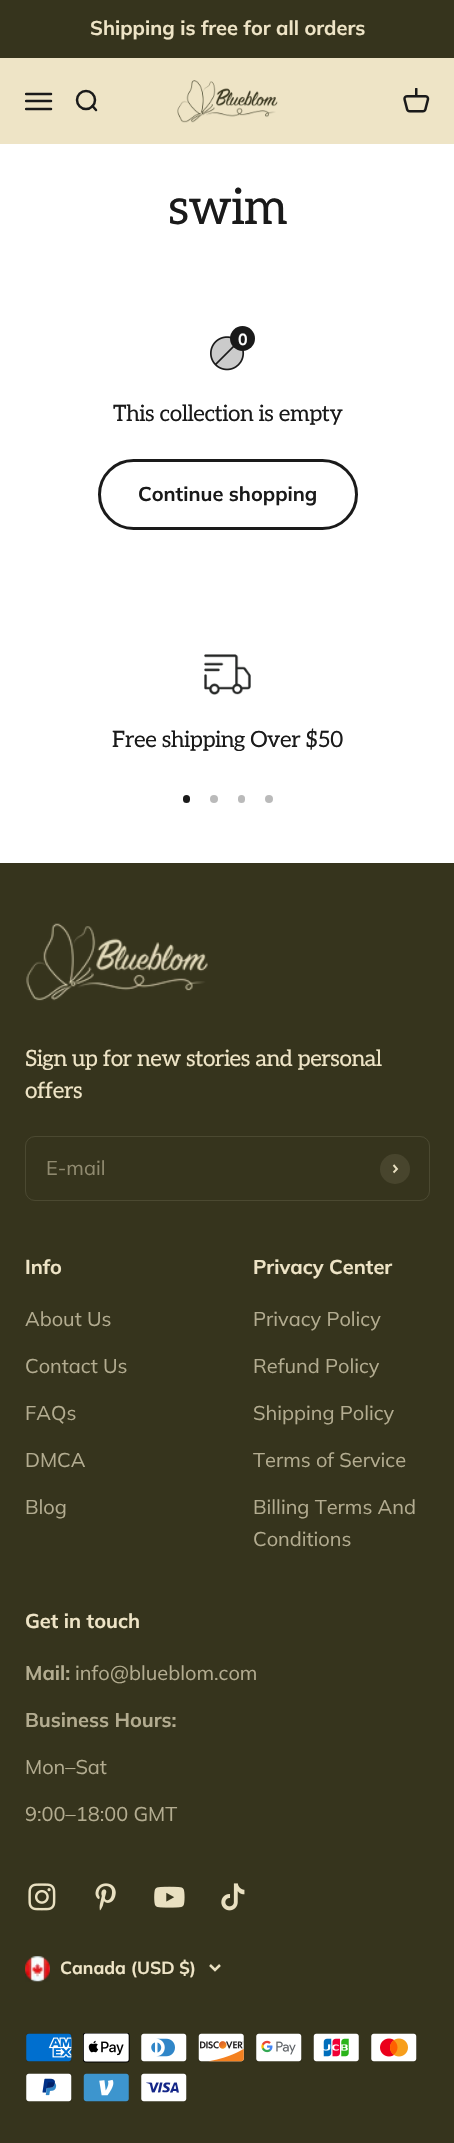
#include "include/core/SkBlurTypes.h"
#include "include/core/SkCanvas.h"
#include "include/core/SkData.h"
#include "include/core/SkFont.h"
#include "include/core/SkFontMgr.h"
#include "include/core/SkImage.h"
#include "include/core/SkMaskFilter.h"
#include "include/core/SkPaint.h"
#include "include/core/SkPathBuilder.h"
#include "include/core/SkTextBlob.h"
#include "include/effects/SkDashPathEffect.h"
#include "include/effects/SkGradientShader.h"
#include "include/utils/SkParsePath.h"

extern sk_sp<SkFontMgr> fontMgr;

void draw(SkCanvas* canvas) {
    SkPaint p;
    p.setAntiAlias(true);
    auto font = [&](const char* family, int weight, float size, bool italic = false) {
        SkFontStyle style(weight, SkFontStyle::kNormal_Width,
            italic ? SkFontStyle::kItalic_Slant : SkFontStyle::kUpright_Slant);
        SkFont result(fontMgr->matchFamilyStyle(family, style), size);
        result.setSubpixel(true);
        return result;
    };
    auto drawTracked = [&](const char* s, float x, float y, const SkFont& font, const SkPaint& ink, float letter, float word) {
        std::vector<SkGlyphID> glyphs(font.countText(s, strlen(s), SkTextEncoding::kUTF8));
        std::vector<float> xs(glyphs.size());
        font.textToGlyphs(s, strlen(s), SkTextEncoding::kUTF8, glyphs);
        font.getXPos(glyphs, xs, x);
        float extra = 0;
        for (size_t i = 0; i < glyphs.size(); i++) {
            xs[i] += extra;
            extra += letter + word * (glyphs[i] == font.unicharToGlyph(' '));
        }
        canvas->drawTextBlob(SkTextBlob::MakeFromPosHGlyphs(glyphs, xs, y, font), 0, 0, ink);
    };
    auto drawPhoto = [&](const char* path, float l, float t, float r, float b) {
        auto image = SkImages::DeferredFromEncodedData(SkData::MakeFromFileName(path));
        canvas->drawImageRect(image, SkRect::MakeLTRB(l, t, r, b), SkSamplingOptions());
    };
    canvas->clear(0xFFFFFFFF);
    p.setColor(0xFF36341D);
    canvas->drawRect(SkRect::MakeLTRB(0, 0, 454, 58), p);
    auto font1 = font("Muli", 700, 20);
    p.setColor(0xFFEEE4C6);
    canvas->drawString("Shipping is free for all orders", 90, 35, font1, p);
    canvas->drawRect(SkRect::MakeLTRB(0, 58, 454, 144), p);
    canvas->save();
    canvas->clipRect(SkRect::MakeLTRB(25, 88, 53, 115));
    p.setStyle(SkPaint::kStroke_Style);
    p.setStrokeWidth(2.5f);
    p.setStrokeCap(SkPaint::kRound_Cap);
    p.setColor(0xFF1A1A1A);
    canvas->drawPath(SkPathBuilder().moveTo(26, 94).lineTo(51, 94).moveTo(26, 101).lineTo(51, 101).moveTo(26, 109).lineTo(51, 109).detach(), p);
    canvas->restore();
    p.setStrokeCap(SkPaint::kButt_Cap);
    canvas->drawCircle(86, 100, 9, p);
    p.setStrokeCap(SkPaint::kRound_Cap);
    p.setStrokeJoin(SkPaint::kRound_Join);
    canvas->drawPath(SkPathBuilder().moveTo(92.5f, 106).lineTo(96, 110).detach(), p);
    drawPhoto("media/1.png", 177, 80, 278, 123);
    drawPhoto("media/2.png", 403, 88, 430, 113);
    auto font2 = font("Aleo", 400, 50);
    p.setStyle(SkPaint::kFill_Style);
    drawTracked("swim", 168, 224, font2, p, -1, 0);
    drawPhoto("media/3.png", 210, 336, 245, 371);
    canvas->drawCircle(242.5f, 338.5f, 12.5f, p);
    auto font3 = font("Muli", 700, 16);
    p.setColor(0xFFFFFFFF);
    canvas->drawString("0", 238, 345, font3, p);
    auto font4 = font("Aleo", 400, 22.5f);
    p.setColor(0xFF1A1A1A);
    drawTracked("This collection is empty", 113, 421, font4, p, -0.45f, 0);
    p.setStyle(SkPaint::kStroke_Style);
    p.setStrokeWidth(3);
    p.setStrokeCap(SkPaint::kButt_Cap);
    p.setStrokeJoin(SkPaint::kMiter_Join);
    canvas->drawRoundRect(SkRect::MakeLTRB(99.5f, 460.5f, 356.5f, 528.5f), 34, 34, p);
    p.setStyle(SkPaint::kFill_Style);
    canvas->drawString("Continue shopping", 138, 501, font1, p);
    drawPhoto("media/4.png", 204, 654, 251, 695);
    drawTracked("Free shipping Over $50", 112, 747, font4, p, -0.45f, 0);
    canvas->drawRoundRect(SkRect::MakeLTRB(183, 795, 190, 803), 3.5f, 3.5f, p);
    p.setColor(0xFFBABABA);
    canvas->drawCircle(214, 799, 4, p);
    canvas->drawRoundRect(SkRect::MakeLTRB(238, 795, 245, 803), 3.5f, 3.5f, p);
    canvas->drawCircle(269, 799, 4, p);
    p.setColor(0xFF36341D);
    canvas->drawRect(SkRect::MakeLTRB(0, 863, 454, 2143), p);
    drawPhoto("media/5.png", 26, 923, 208, 1001);
    p.setColor(0xFFEEE4C6);
    drawTracked("Sign up for new stories and personal", 25, 1066, font4, p, -0.45f, 0);
    drawTracked("offers", 25, 1098, font4, p, -0.45f, 0);
    p.setStyle(SkPaint::kStroke_Style);
    p.setStrokeWidth(1);
    p.setColor(0xFF4B4931);
    canvas->drawRoundRect(SkRect::MakeLTRB(25.5f, 1136.5f, 429.5f, 1200.5f), 9.5f, 9.5f, p);
    auto font5 = font("Muli", 400, 20);
    p.setStyle(SkPaint::kFill_Style);
    p.setColor(0xFF908A6F);
    canvas->drawString("E-mail", 46, 1175, font5, p);
    p.setColor(0xFF48452D);
    canvas->drawCircle(395, 1169, 15, p);
    p.setStyle(SkPaint::kStroke_Style);
    p.setStrokeWidth(1.9f);
    p.setColor(0xFFE9E0C1);
    canvas->drawPath(SkPathBuilder().moveTo(393.5f, 1172.5f).lineTo(397, 1169).lineTo(393.5f, 1165).detach(), p);
    p.setStyle(SkPaint::kFill_Style);
    p.setColor(0xFFEEE4C6);
    canvas->drawString("Info", 25, 1274, font1, p);
    p.setColor(0xFFB3AC90);
    {
        const struct { const char* s; float x, y; } items[] = {
            {"About Us", 25, 1326},
            {"Contact Us", 25, 1373},
            {"FAQs", 25, 1420},
            {"DMCA", 25, 1467},
            {"Blog", 25, 1514},
        };
        for (auto [s, x, y] : items) {
            canvas->drawString(s, x, y, font5, p);
        }
    }
    p.setColor(0xFFEEE4C6);
    canvas->drawString("Privacy Center", 253, 1274, font1, p);
    p.setColor(0xFFB3AC90);
    {
        const struct { const char* s; float x, y; } items[] = {
            {"Privacy Policy", 253, 1326},
            {"Refund Policy", 253, 1373},
            {"Shipping Policy", 253, 1420},
            {"Terms of Service", 253, 1467},
            {"Billing Terms And", 253, 1514},
            {"Conditions", 253, 1546},
        };
        for (auto [s, x, y] : items) {
            canvas->drawString(s, x, y, font5, p);
        }
    }
    p.setColor(0xFFEEE4C6);
    canvas->drawString("Get in touch", 25, 1628, font1, p);
    p.setColor(0xFFB3AC90);
    canvas->drawString("Mail:", 25, 1680, font1, p);
    canvas->drawString("info@blueblom.com", 75, 1680, font5, p);
    canvas->drawString("Business Hours:", 25, 1727, font1, p);
    canvas->drawString("Mon–Sat", 25, 1774, font5, p);
    canvas->drawString("9:00–18:00 GMT", 25, 1821, font5, p);
    drawPhoto("media/6.png", 28, 1883, 56, 1911);
    drawPhoto("media/7.png", 95, 1883, 116, 1911);
    drawPhoto("media/8.png", 154, 1886, 185, 1908);
    drawPhoto("media/9.png", 221, 1883, 245, 1911);
    drawPhoto("media/10.png", 25, 1956, 50, 1982);
    auto font6 = font("Muli", 700, 17.5f);
    p.setColor(0xFFEEE4C6);
    canvas->drawString("Canada (USD $)", 60, 1974, font6, p);
    p.setStyle(SkPaint::kStroke_Style);
    p.setStrokeWidth(2.5f);
    p.setColor(0xFFE9E0C1);
    canvas->drawPath(SkPathBuilder().moveTo(210, 1965).lineTo(215, 1970).lineTo(220, 1965).detach(), p);
    drawPhoto("media/11.png", 26, 2033, 72, 2062);
    drawPhoto("media/12.png", 83, 2033, 130, 2063);
    drawPhoto("media/13.png", 141, 2033, 187, 2062);
    drawPhoto("media/14.png", 198, 2033, 244, 2062);
    drawPhoto("media/15.png", 256, 2033, 302, 2062);
    drawPhoto("media/16.png", 313, 2033, 359, 2062);
    drawPhoto("media/17.png", 371, 2033, 417, 2062);
    drawPhoto("media/18.png", 26, 2073, 72, 2102);
    drawPhoto("media/19.png", 83, 2073, 129, 2102);
    drawPhoto("media/20.png", 141, 2073, 187, 2102);
}
